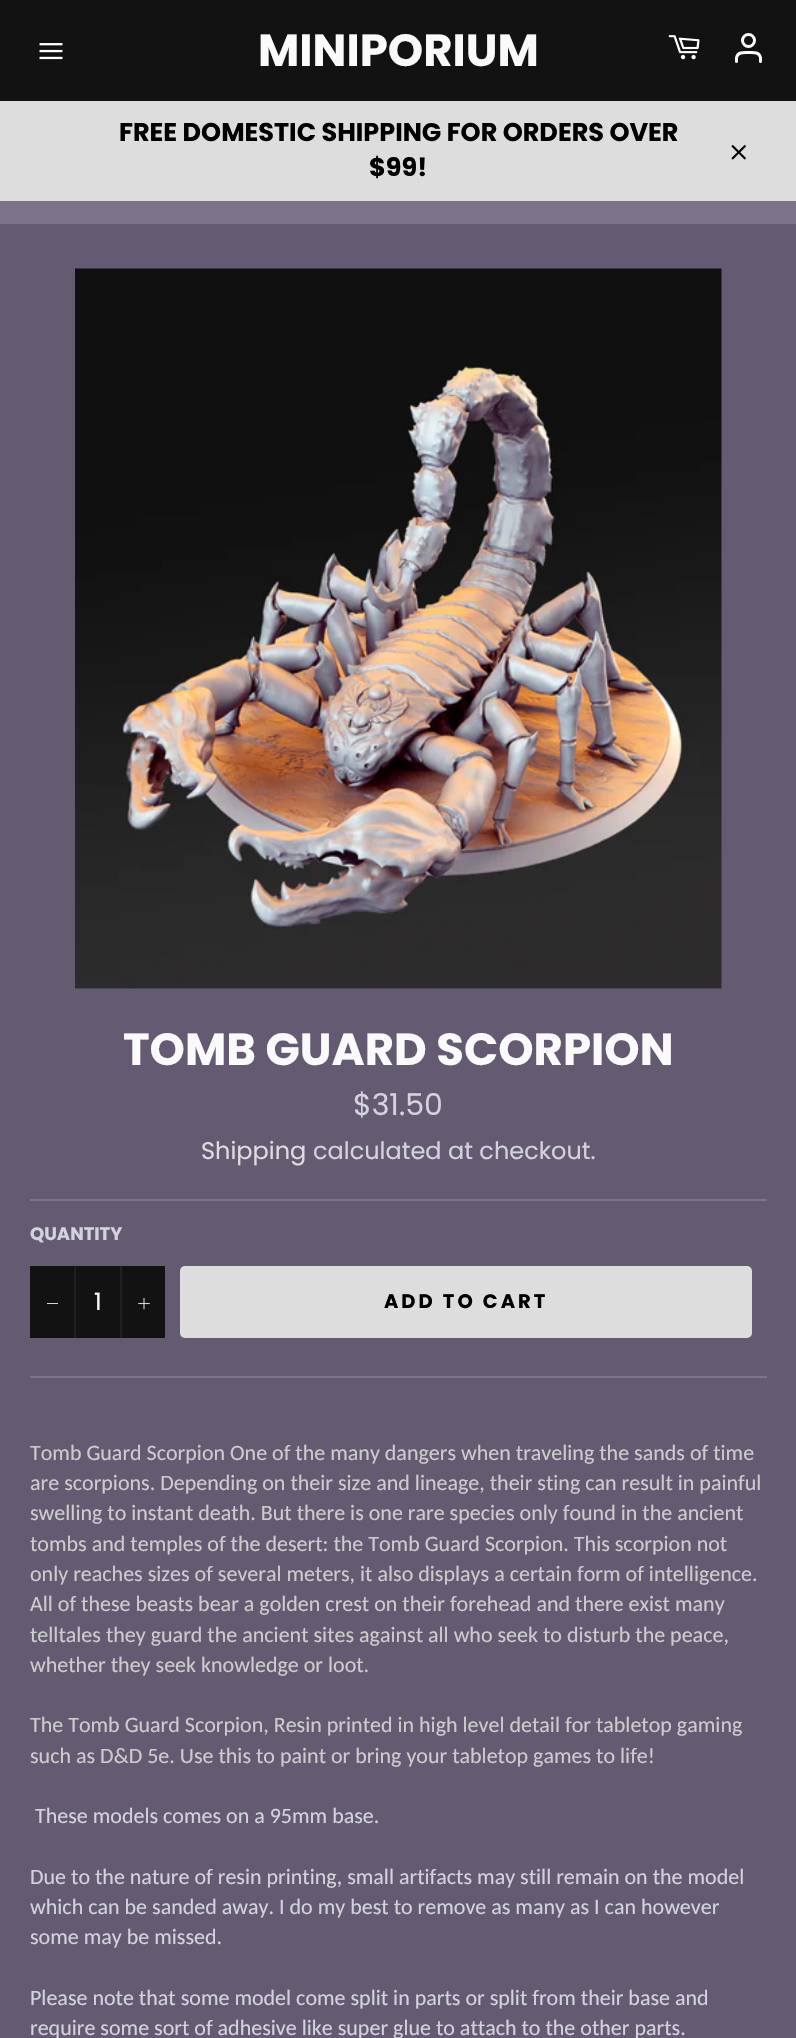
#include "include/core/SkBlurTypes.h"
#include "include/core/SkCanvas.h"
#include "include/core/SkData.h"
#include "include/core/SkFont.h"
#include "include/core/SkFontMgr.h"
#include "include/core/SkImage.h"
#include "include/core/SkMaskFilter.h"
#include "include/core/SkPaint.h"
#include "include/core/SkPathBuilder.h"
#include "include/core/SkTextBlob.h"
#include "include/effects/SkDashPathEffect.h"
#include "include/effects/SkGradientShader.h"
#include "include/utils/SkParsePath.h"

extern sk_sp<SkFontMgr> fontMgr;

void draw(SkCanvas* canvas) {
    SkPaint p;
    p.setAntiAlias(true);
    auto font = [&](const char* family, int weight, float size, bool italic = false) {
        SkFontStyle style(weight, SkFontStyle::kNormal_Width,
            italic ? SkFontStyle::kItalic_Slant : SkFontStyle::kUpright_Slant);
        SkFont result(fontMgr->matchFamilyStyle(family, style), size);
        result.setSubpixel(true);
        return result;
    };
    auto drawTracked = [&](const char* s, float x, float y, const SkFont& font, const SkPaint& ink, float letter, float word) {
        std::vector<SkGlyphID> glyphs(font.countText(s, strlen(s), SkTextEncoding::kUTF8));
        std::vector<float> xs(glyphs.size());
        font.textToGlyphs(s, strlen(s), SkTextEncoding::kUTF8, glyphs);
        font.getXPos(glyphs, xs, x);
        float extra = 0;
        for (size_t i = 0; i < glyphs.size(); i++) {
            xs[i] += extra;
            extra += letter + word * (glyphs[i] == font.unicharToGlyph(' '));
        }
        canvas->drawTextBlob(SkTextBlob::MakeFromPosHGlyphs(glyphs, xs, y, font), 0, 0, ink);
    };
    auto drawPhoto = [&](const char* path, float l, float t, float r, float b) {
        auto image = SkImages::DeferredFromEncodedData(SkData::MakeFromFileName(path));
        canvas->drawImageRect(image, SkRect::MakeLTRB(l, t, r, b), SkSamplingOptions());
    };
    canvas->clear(0xFF7C748A);
    p.setColor(0xFF121212);
    canvas->drawRect(SkRect::MakeLTRB(0, 0, 796, 101), p);
    drawPhoto("media/1.png", 39, 43, 63, 60);
    auto font1 = font("Poppins", 700, 45);
    p.setColor(0xFFFAFAFA);
    canvas->drawString("MINIPORIUM", 258, 66, font1, p);
    drawPhoto("media/2.png", 668, 35, 700, 60);
    p.setStyle(SkPaint::kStroke_Style);
    p.setStrokeWidth(3);
    canvas->drawCircle(748.5f, 40.5f, 6, p);
    p.setStrokeCap(SkPaint::kRound_Cap);
    p.setStrokeJoin(SkPaint::kRound_Join);
    canvas->drawPath(SkPathBuilder().moveTo(760.5f, 61.5f).lineTo(760.5f, 57.5f).cubicTo(759, 51.5f, 753, 52.5f, 748.5f, 52.5f).cubicTo(744, 52.5f, 738, 51.5f, 736.5f, 57.5f).lineTo(736.5f, 61.5f).detach(), p);
    p.setStyle(SkPaint::kFill_Style);
    p.setColor(0xFFDDDDDD);
    canvas->drawRect(SkRect::MakeLTRB(0, 101, 796, 201), p);
    auto font2 = font("Poppins", 700, 25.5f);
    p.setColor(0xFF000000);
    canvas->drawString("FREE DOMESTIC SHIPPING FOR ORDERS OVER", 119, 141, font2, p);
    canvas->drawString("$99!", 369, 176, font2, p);
    drawPhoto("media/3.png", 731, 144, 747, 160);
    p.setColor(0xFF645B72);
    canvas->drawRect(SkRect::MakeLTRB(0, 224, 796, 2038), p);
    drawPhoto("media/4.png", 75, 268, 722, 989);
    p.setColor(0xFFFAFAFA);
    canvas->drawString("TOMB GUARD SCORPION", 123, 1065, font1, p);
    auto font3 = font("Poppins", 400, 30);
    p.setColor(0xFFD2D3DC);
    canvas->drawString("$31.50", 353, 1115, font3, p);
    auto font4 = font("Poppins", 400, 24);
    p.setColor(0xFFDDDDDD);
    canvas->drawString("Shipping", 201, 1159, font4, p);
    p.setColor(0xFFD2D3DC);
    canvas->drawString("calculated at checkout.", 313, 1159, font4, p);
    p.setColor(0xFF7C748A);
    canvas->drawRect(SkRect::MakeLTRB(30, 1199, 767, 1201), p);
    auto font5 = font("Poppins", 700, 18);
    p.setColor(0xFFD2D3DC);
    canvas->drawString("QUANTITY", 30, 1240, font5, p);
    {
        const struct { float l, t, r, b; SkColor color; } items[] = {
            {30, 1266, 165, 1338, 0xFF121212},
            {74, 1266, 76, 1338, 0xFF1F1F1F},
            {47, 1303, 58, 1304, 0xFFD2D3DC},
        };
        for (auto [l, t, r, b, color] : items) {
            p.setColor(color);
            canvas->drawRect(SkRect::MakeLTRB(l, t, r, b), p);
        }
    }
    p.setColor(0xFFFAFAFA);
    canvas->drawString("1", 94, 1310, font4, p);
    p.setColor(0xFF1F1F1F);
    canvas->drawRect(SkRect::MakeLTRB(120, 1266, 122, 1338), p);
    drawPhoto("media/5.png", 138, 1298, 150, 1310);
    p.setColor(0xFFDDDDDD);
    canvas->drawRoundRect(SkRect::MakeLTRB(180, 1266, 752, 1338), 5, 5, p);
    auto font6 = font("Poppins", 700, 19.5f);
    p.setColor(0xFF000000);
    drawTracked("ADD TO CART", 384, 1308, font6, p, 3, 0);
    p.setColor(0xFF7C748A);
    canvas->drawRect(SkRect::MakeLTRB(30, 1376, 767, 1378), p);
    auto font7 = font("Carlito", 400, 22);
    p.setColor(0xFFCCCCCC);
    {
        const struct { const char* s; float x, y; } items[] = {
            {"Tomb Guard Scorpion One of the many dangers when traveling the sands of time", 30, 1460},
            {"are scorpions. Depending on their size and lineage, their sting can result in painful", 30, 1490},
            {"swelling to instant death. But there is one rare species only found in the ancient", 30, 1520},
            {"tombs and temples of the desert: the Tomb Guard Scorpion. This scorpion not", 30, 1551},
            {"only reaches sizes of several meters, it also displays a certain form of intelligence.", 30, 1581},
            {"All of these beasts bear a golden crest on their forehead and there exist many", 30, 1611},
            {"telltales they guard the ancient sites against all who seek to disturb the peace,", 30, 1642},
            {"whether they seek knowledge or loot.", 30, 1672},
            {"The Tomb Guard Scorpion, Resin printed in high level detail for tabletop gaming", 30, 1732},
            {"such as D&D 5e. Use this to paint or bring your tabletop games to life!", 30, 1763},
        };
        for (auto [s, x, y] : items) {
            canvas->drawString(s, x, y, font7, p);
        }
    }
    p.setColor(0xFFD2D3DC);
    {
        const struct { const char* s; float x, y; } items[] = {
            {"These models comes on a 95mm base.", 35, 1823},
            {"Due to the nature of resin printing, small artifacts may still remain on the model", 30, 1884},
            {"which can be sanded away. I do my best to remove as many as I can however", 30, 1914},
            {"some may be missed.", 30, 1944},
            {"Please note that some model come split in parts or split from their base and", 30, 2005},
            {"require some sort of adhesive like super glue to attach to the other parts.", 30, 2035},
        };
        for (auto [s, x, y] : items) {
            canvas->drawString(s, x, y, font7, p);
        }
    }
}
